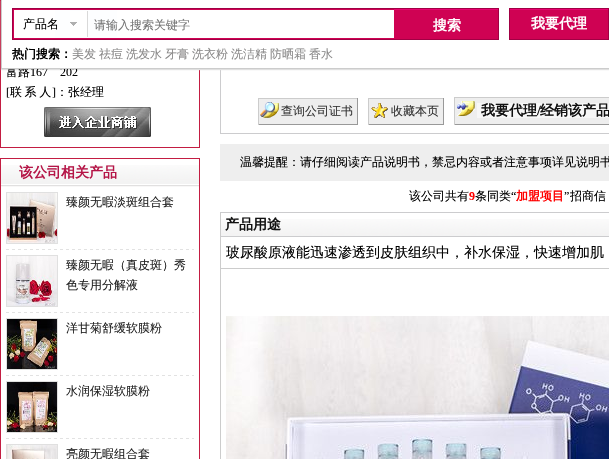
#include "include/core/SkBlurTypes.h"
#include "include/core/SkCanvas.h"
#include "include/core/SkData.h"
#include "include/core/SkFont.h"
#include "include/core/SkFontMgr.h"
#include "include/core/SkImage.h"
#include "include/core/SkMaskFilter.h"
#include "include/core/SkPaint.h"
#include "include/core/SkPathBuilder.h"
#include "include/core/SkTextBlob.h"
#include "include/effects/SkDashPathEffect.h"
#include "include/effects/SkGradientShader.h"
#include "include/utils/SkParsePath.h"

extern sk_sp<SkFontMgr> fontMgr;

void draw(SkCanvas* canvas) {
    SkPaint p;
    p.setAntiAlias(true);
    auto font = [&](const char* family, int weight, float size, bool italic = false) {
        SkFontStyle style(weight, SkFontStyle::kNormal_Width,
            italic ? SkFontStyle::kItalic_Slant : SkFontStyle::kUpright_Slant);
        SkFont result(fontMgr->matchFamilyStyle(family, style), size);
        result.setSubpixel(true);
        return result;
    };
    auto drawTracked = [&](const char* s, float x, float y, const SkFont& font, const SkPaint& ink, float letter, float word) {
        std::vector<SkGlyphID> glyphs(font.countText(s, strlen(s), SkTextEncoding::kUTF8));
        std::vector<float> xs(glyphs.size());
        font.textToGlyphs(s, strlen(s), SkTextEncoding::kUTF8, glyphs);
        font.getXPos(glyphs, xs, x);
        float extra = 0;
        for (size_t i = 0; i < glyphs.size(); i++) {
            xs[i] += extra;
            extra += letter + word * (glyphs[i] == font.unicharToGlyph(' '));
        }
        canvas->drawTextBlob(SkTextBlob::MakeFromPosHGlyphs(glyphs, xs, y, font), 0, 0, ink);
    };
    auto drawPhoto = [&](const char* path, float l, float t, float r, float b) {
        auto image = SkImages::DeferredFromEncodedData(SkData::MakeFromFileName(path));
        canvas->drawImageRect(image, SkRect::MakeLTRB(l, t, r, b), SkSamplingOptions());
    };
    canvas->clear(0xFFFFFFFF);
    p.setStyle(SkPaint::kStroke_Style);
    p.setStrokeWidth(1);
    p.setColor(0xFFC31D42);
    canvas->drawRect(SkRect::MakeLTRB(0.5f, -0.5f, 199.5f, 147.5f), p);
    p.setColor(0xFFCCCCCE);
    canvas->drawRect(SkRect::MakeLTRB(220.5f, -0.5f, 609.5f, 133.5f), p);
    p.setStyle(SkPaint::kFill_Style);
    p.setColor(0xFFE0E0E0);
    p.setMaskFilter(SkMaskFilter::MakeBlur(kNormal_SkBlurStyle, 0.5f));
    canvas->drawRect(SkRect::MakeLTRB(1, 1, 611, 70), p);
    p.setMaskFilter(nullptr);
    auto font1 = font("WenQuanYi Zen Hei", 500, 12);
    p.setColor(0xFF000000);
    canvas->drawString("富路", 6, 76, font1, p);
    p.setColor(0xFFFFFFFF);
    canvas->drawRect(SkRect::MakeLTRB(2, 0, 609, 68), p);
    auto font2 = font("Liberation Serif", 400, 12);
    p.setColor(0xFF000000);
    canvas->drawString("167", 30, 76, font2, p);
    canvas->drawString("202", 60, 76, font2, p);
    p.setColor(0xFFCCCCCC);
    canvas->drawRect(SkRect::MakeLTRB(1, 68, 609, 69), p);
    canvas->drawRect(SkRect::MakeLTRB(1, 0, 2, 69), p);
    drawPhoto("media/1.png", 12, 8, 394, 40);
    drawPhoto("media/2.png", 70, 11, 88, 37);
    p.setColor(0xFF000000);
    canvas->drawString("产品名", 23, 28, font1, p);
    p.setColor(0xFF757575);
    canvas->drawString("请输入搜索关键字", 94, 29, font1, p);
    drawPhoto("media/3.png", 394, 8, 499, 40);
    auto font3 = font("WenQuanYi Zen Hei", 700, 14);
    p.setColor(0xFFFFFFFF);
    canvas->drawString("搜索", 433, 30, font3, p);
    drawPhoto("media/4.png", 509, 8, 609, 40);
    canvas->drawString("我要代理", 531, 28, font3, p);
    auto font4 = font("WenQuanYi Zen Hei", 700, 12);
    p.setColor(0xFF000000);
    canvas->drawString("热门搜索：", 12, 58, font4, p);
    p.setColor(0xFF8A8989);
    {
        const struct { const char* s; float x, y; } items[] = {
            {"美发", 72, 58},
            {"祛痘", 99, 58},
            {"洗发水", 126, 58},
            {"牙膏", 165, 58},
            {"洗衣粉", 192, 58},
            {"洗洁精", 231, 58},
            {"防晒霜", 270, 58},
            {"香水", 309, 58},
        };
        for (auto [s, x, y] : items) {
            canvas->drawString(s, x, y, font1, p);
        }
    }
    p.setColor(0xFF000000);
    canvas->drawString("[", 6, 96, font2, p);
    drawTracked("联 系 人", 10, 96, font1, p, 0, -1);
    canvas->drawString("]", 52, 96, font2, p);
    canvas->drawString("：张经理", 56, 96, font1, p);
    drawPhoto("media/5.png", 44, 107, 151, 137);
    p.setStyle(SkPaint::kStroke_Style);
    p.setColor(0xFFC31D42);
    canvas->drawRect(SkRect::MakeLTRB(0.5f, 158.5f, 199.5f, 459.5f), p);
    drawPhoto("media/6.png", 1, 165, 199, 187);
    p.setStyle(SkPaint::kFill_Style);
    p.setColor(0xFFB51547);
    canvas->drawString("该公司相关产品", 19, 177, font3, p);
    drawPhoto("media/7.png", 6, 249, 194, 250);
    p.setStyle(SkPaint::kStroke_Style);
    p.setColor(0xFFE0E0E0);
    canvas->drawRect(SkRect::MakeLTRB(6.5f, 192.5f, 57.5f, 243.5f), p);
    drawPhoto("media/8.png", 7, 193, 57, 243);
    p.setStyle(SkPaint::kFill_Style);
    p.setColor(0xFF222222);
    canvas->drawString("臻颜无暇淡斑组合套", 66, 206, font1, p);
    drawPhoto("media/7.png", 6, 312, 194, 313);
    p.setStyle(SkPaint::kStroke_Style);
    p.setColor(0xFFE0E0E0);
    canvas->drawRect(SkRect::MakeLTRB(6.5f, 255.5f, 57.5f, 306.5f), p);
    drawPhoto("media/9.png", 7, 256, 57, 306);
    p.setStyle(SkPaint::kFill_Style);
    p.setColor(0xFF222222);
    canvas->drawString("臻颜无暇（真皮斑）秀", 66, 269, font1, p);
    canvas->drawString("色专用分解液", 66, 289, font1, p);
    drawPhoto("media/7.png", 6, 375, 194, 376);
    p.setStyle(SkPaint::kStroke_Style);
    p.setColor(0xFFE0E0E0);
    canvas->drawRect(SkRect::MakeLTRB(6.5f, 318.5f, 57.5f, 369.5f), p);
    drawPhoto("media/10.png", 7, 319, 57, 369);
    p.setStyle(SkPaint::kFill_Style);
    p.setColor(0xFF222222);
    canvas->drawString("洋甘菊舒缓软膜粉", 66, 332, font1, p);
    drawPhoto("media/7.png", 6, 438, 194, 439);
    p.setStyle(SkPaint::kStroke_Style);
    p.setColor(0xFFE0E0E0);
    canvas->drawRect(SkRect::MakeLTRB(6.5f, 381.5f, 57.5f, 432.5f), p);
    drawPhoto("media/11.png", 7, 382, 57, 432);
    p.setStyle(SkPaint::kFill_Style);
    p.setColor(0xFF222222);
    canvas->drawString("水润保湿软膜粉", 66, 395, font1, p);
    p.setStyle(SkPaint::kStroke_Style);
    p.setColor(0xFFE0E0E0);
    canvas->drawRect(SkRect::MakeLTRB(6.5f, 444.5f, 57.5f, 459.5f), p);
    drawPhoto("media/12.png", 7, 445, 57, 459);
    p.setStyle(SkPaint::kFill_Style);
    p.setColor(0xFF222222);
    canvas->drawString("亮颜无暇组合套", 66, 458, font1, p);
    p.setColor(0xFFEEEEEE);
    canvas->drawRect(SkRect::MakeLTRB(259, 99, 357, 124), p);
    drawPhoto("media/13.png", 260, 102, 279, 118);
    {
        const struct { float l, t, r, b; SkColor color; } items[] = {
            {258, 98, 358, 99, 0xFFCCCCCC},
            {357, 98, 358, 125, 0xFF999999},
            {258, 124, 358, 125, 0xFF999999},
            {258, 98, 259, 125, 0xFFCCCCCC},
        };
        for (auto [l, t, r, b, color] : items) {
            p.setColor(color);
            canvas->drawRect(SkRect::MakeLTRB(l, t, r, b), p);
        }
    }
    p.setColor(0xFF333333);
    canvas->drawString("查询公司证书", 281, 115, font1, p);
    p.setColor(0xFFEEEEEE);
    canvas->drawRect(SkRect::MakeLTRB(369, 99, 443, 124), p);
    drawPhoto("media/14.png", 371, 103, 388, 118);
    {
        const struct { float l, t, r, b; SkColor color; } items[] = {
            {368, 98, 444, 99, 0xFFCCCCCC},
            {443, 98, 444, 125, 0xFF999999},
            {368, 124, 444, 125, 0xFF999999},
            {368, 98, 369, 125, 0xFFCCCCCC},
        };
        for (auto [l, t, r, b, color] : items) {
            p.setColor(color);
            canvas->drawRect(SkRect::MakeLTRB(l, t, r, b), p);
        }
    }
    p.setColor(0xFF333333);
    canvas->drawString("收藏本页", 391, 115, font1, p);
    p.setColor(0xFFEEEEEE);
    canvas->drawRect(SkRect::MakeLTRB(455, 98, 609, 124), p);
    drawPhoto("media/15.png", 457, 101, 475, 116);
    {
        const struct { float l, t, r, b; SkColor color; } items[] = {
            {454, 97, 609, 98, 0xFFCCCCCC},
            {454, 124, 609, 125, 0xFF999999},
            {454, 97, 455, 125, 0xFFCCCCCC},
            {477, 103, 609, 118, 0xFFF7F7F7},
        };
        for (auto [l, t, r, b, color] : items) {
            p.setColor(color);
            canvas->drawRect(SkRect::MakeLTRB(l, t, r, b), p);
        }
    }
    p.setColor(0xFF111111);
    canvas->drawString("我要代理", 481, 115, font3, p);
    auto font5 = font("Liberation Serif", 700, 14);
    canvas->drawString("/", 537, 115, font5, p);
    canvas->drawString("经销该产品", 540, 115, font3, p);
    p.setColor(0xFFEEEEEE);
    canvas->drawRect(SkRect::MakeLTRB(220, 144, 609, 181), p);
    p.setColor(0xFF000000);
    canvas->drawString("温馨提醒：请仔细阅读产品说明书，禁忌内容或者注意事项详见说明书", 240, 166, font1, p);
    canvas->drawString("该公司共有", 409, 200, font1, p);
    auto font6 = font("Liberation Serif", 700, 12);
    p.setColor(0xFFFF0000);
    canvas->drawString("9", 469, 200, font6, p);
    p.setColor(0xFF000000);
    canvas->drawString("条同类", 475, 200, font1, p);
    canvas->drawString("“", 511, 200, font2, p);
    p.setColor(0xFFFF0000);
    canvas->drawString("加盟项目", 516, 200, font4, p);
    p.setColor(0xFF000000);
    canvas->drawString("”", 564, 200, font2, p);
    canvas->drawString("招商信", 570, 200, font1, p);
    p.setColor(0xFFCCCCCC);
    canvas->drawRect(SkRect::MakeLTRB(220, 212, 221, 459), p);
    drawPhoto("media/16.png", 221, 219, 609, 236);
    p.setColor(0xFFCCCCCE);
    canvas->drawRect(SkRect::MakeLTRB(221, 212, 609, 213), p);
    canvas->drawRect(SkRect::MakeLTRB(221, 236, 609, 237), p);
    p.setColor(0xFF111111);
    canvas->drawString("产品用途", 225, 229, font3, p);
    auto font7 = font("WenQuanYi Zen Hei", 500, 14);
    p.setColor(0xFF000000);
    canvas->drawString("玻尿酸原液能迅速渗透到皮肤组织中，补水保湿，快速增加肌", 226, 257, font7, p);
    p.setColor(0xFFCCCCCC);
    canvas->drawRect(SkRect::MakeLTRB(221, 268, 609, 269), p);
    drawPhoto("media/17.png", 226, 316, 609, 459);
}
